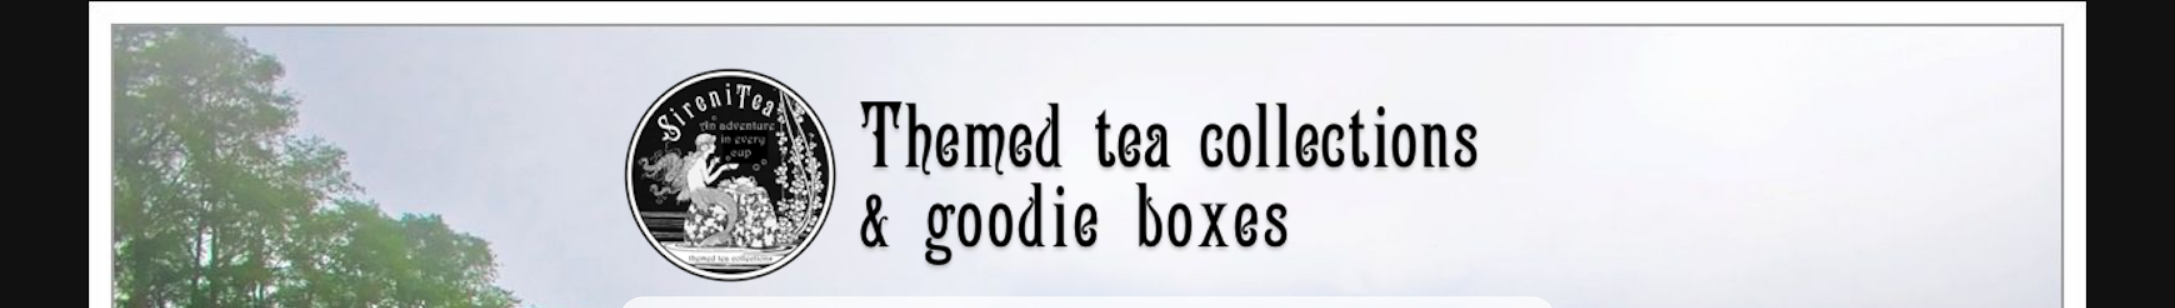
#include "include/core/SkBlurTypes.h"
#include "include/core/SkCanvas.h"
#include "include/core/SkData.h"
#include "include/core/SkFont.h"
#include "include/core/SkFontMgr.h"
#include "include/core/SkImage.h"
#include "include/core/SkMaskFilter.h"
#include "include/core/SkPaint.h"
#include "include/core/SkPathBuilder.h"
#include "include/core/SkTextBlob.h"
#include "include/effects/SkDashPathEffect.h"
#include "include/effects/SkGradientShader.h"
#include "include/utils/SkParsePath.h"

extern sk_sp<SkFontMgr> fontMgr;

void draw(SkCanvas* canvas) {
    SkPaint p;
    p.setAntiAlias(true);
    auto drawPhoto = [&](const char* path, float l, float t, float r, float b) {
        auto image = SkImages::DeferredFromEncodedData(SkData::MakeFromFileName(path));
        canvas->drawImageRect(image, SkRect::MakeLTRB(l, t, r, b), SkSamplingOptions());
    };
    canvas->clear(0xFF111111);
    drawPhoto("media/1.png", 87, 0, 2088, 308);
    drawPhoto("media/2.png", 623, 67, 1479, 283);
    drawPhoto("media/3.png", 623, 296, 1552, 308);
}
